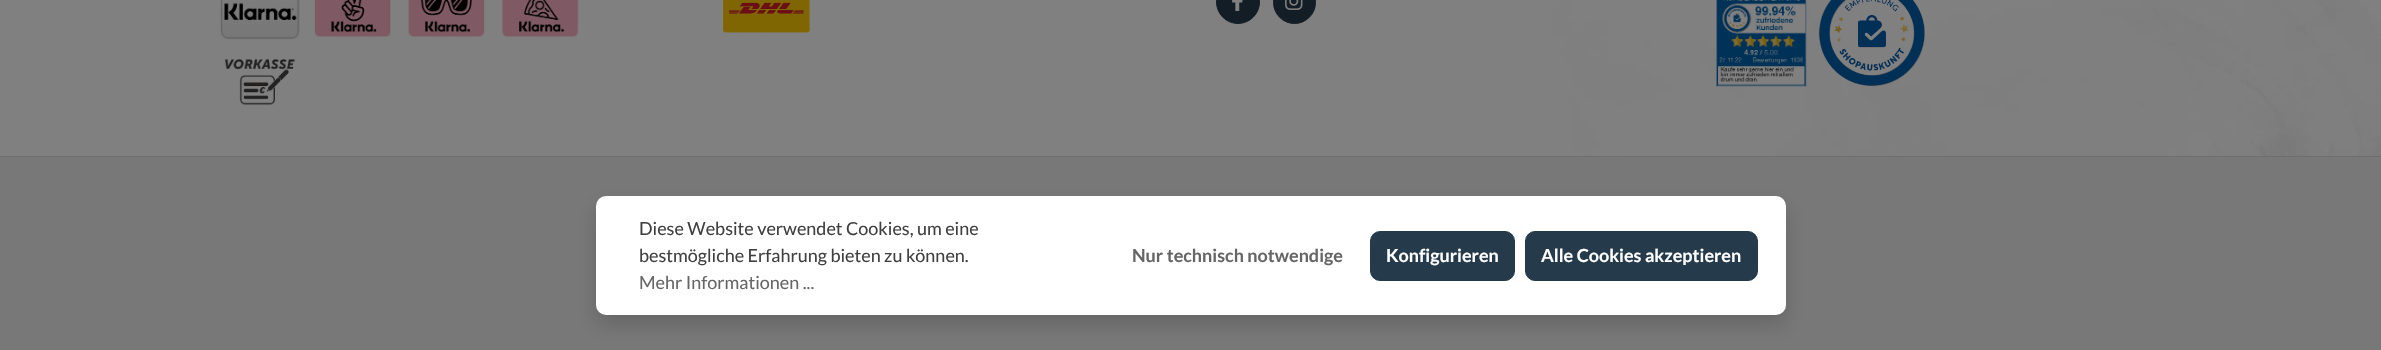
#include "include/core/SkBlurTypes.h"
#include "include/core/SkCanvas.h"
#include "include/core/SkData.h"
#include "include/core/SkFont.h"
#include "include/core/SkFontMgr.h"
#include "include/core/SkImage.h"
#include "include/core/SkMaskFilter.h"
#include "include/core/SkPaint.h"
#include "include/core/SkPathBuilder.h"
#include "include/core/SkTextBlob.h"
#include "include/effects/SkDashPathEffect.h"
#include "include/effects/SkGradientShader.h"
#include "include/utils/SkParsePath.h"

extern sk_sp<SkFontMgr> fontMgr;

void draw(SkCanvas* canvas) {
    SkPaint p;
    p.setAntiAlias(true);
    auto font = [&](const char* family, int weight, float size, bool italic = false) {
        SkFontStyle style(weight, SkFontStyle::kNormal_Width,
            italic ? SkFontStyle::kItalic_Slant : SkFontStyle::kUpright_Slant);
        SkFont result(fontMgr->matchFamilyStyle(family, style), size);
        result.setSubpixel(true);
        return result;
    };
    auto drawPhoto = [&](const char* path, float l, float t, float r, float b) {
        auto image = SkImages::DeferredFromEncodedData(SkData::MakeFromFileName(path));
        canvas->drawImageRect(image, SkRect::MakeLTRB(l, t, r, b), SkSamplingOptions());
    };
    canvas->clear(0xFFFFFFFF);
    drawPhoto("media/1.png", 0, 0, 2381, 156);
    drawPhoto("media/2.png", 220, 0, 300, 40);
    drawPhoto("media/3.png", 314, 0, 391, 37);
    drawPhoto("media/4.png", 408, 0, 485, 37);
    drawPhoto("media/5.png", 502, 0, 579, 37);
    drawPhoto("media/6.png", 224, 59, 295, 105);
    drawPhoto("media/7.png", 723, 0, 810, 33);
    p.setColor(0xFF131D26);
    canvas->drawCircle(1238, 2, 21.5f, p);
    p.setStyle(SkPaint::kStroke_Style);
    p.setStrokeWidth(1);
    canvas->drawCircle(1238, 2, 21.5f, p);
    drawPhoto("media/8.png", 1232, 0, 1243, 11);
    p.setStyle(SkPaint::kFill_Style);
    canvas->drawRoundRect(SkRect::MakeLTRB(1273.5f, -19.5f, 1315.5f, 23.5f), 21, 21, p);
    p.setStyle(SkPaint::kStroke_Style);
    canvas->drawRoundRect(SkRect::MakeLTRB(1273.5f, -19.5f, 1315.5f, 23.5f), 21, 21, p);
    drawPhoto("media/9.png", 1285, 0, 1303, 10);
    drawPhoto("media/10.png", 1716, 0, 1807, 87);
    drawPhoto("media/11.png", 1818, 0, 1925, 87);
    p.setStyle(SkPaint::kFill_Style);
    p.setColor(0xFF787878);
    canvas->drawRect(SkRect::MakeLTRB(0, 157, 2381, 350), p);
    p.setColor(0xFF6E6E6E);
    canvas->drawRect(SkRect::MakeLTRB(0, 156, 2381, 157), p);
    p.setColor(0x26000000);
    p.setMaskFilter(SkMaskFilter::MakeBlur(kNormal_SkBlurStyle, 10));
    canvas->drawRoundRect(SkRect::MakeLTRB(596, 206, 1786, 325), 10, 10, p);
    p.setMaskFilter(nullptr);
    p.setColor(0xFFFFFFFF);
    canvas->drawRoundRect(SkRect::MakeLTRB(596, 196, 1786, 315), 10, 10, p);
    auto font1 = font("Lato", 400, 18);
    p.setColor(0xFF404040);
    canvas->drawString("Diese Website verwendet Cookies, um eine", 639, 235, font1, p);
    canvas->drawString("bestmögliche Erfahrung bieten zu können.", 639, 262, font1, p);
    p.setColor(0xFF666666);
    canvas->drawString("Mehr Informationen ...", 639, 289, font1, p);
    auto font2 = font("Lato", 700, 18);
    canvas->drawString("Nur technisch notwendige", 1132, 262, font2, p);
    p.setColor(0xFF253A4B);
    canvas->drawRoundRect(SkRect::MakeLTRB(1370.5f, 231.5f, 1514.5f, 280.5f), 9.5f, 9.5f, p);
    p.setStyle(SkPaint::kStroke_Style);
    canvas->drawRoundRect(SkRect::MakeLTRB(1370.5f, 231.5f, 1514.5f, 280.5f), 9.5f, 9.5f, p);
    p.setStyle(SkPaint::kFill_Style);
    p.setColor(0xFFFFFFFF);
    canvas->drawString("Konfigurieren", 1386, 262, font2, p);
    p.setColor(0xFF253A4B);
    canvas->drawRoundRect(SkRect::MakeLTRB(1525.5f, 231.5f, 1757.5f, 280.5f), 9.5f, 9.5f, p);
    p.setStyle(SkPaint::kStroke_Style);
    canvas->drawRoundRect(SkRect::MakeLTRB(1525.5f, 231.5f, 1757.5f, 280.5f), 9.5f, 9.5f, p);
    p.setStyle(SkPaint::kFill_Style);
    p.setColor(0xFFFFFFFF);
    canvas->drawString("Alle Cookies akzeptieren", 1541, 262, font2, p);
}
